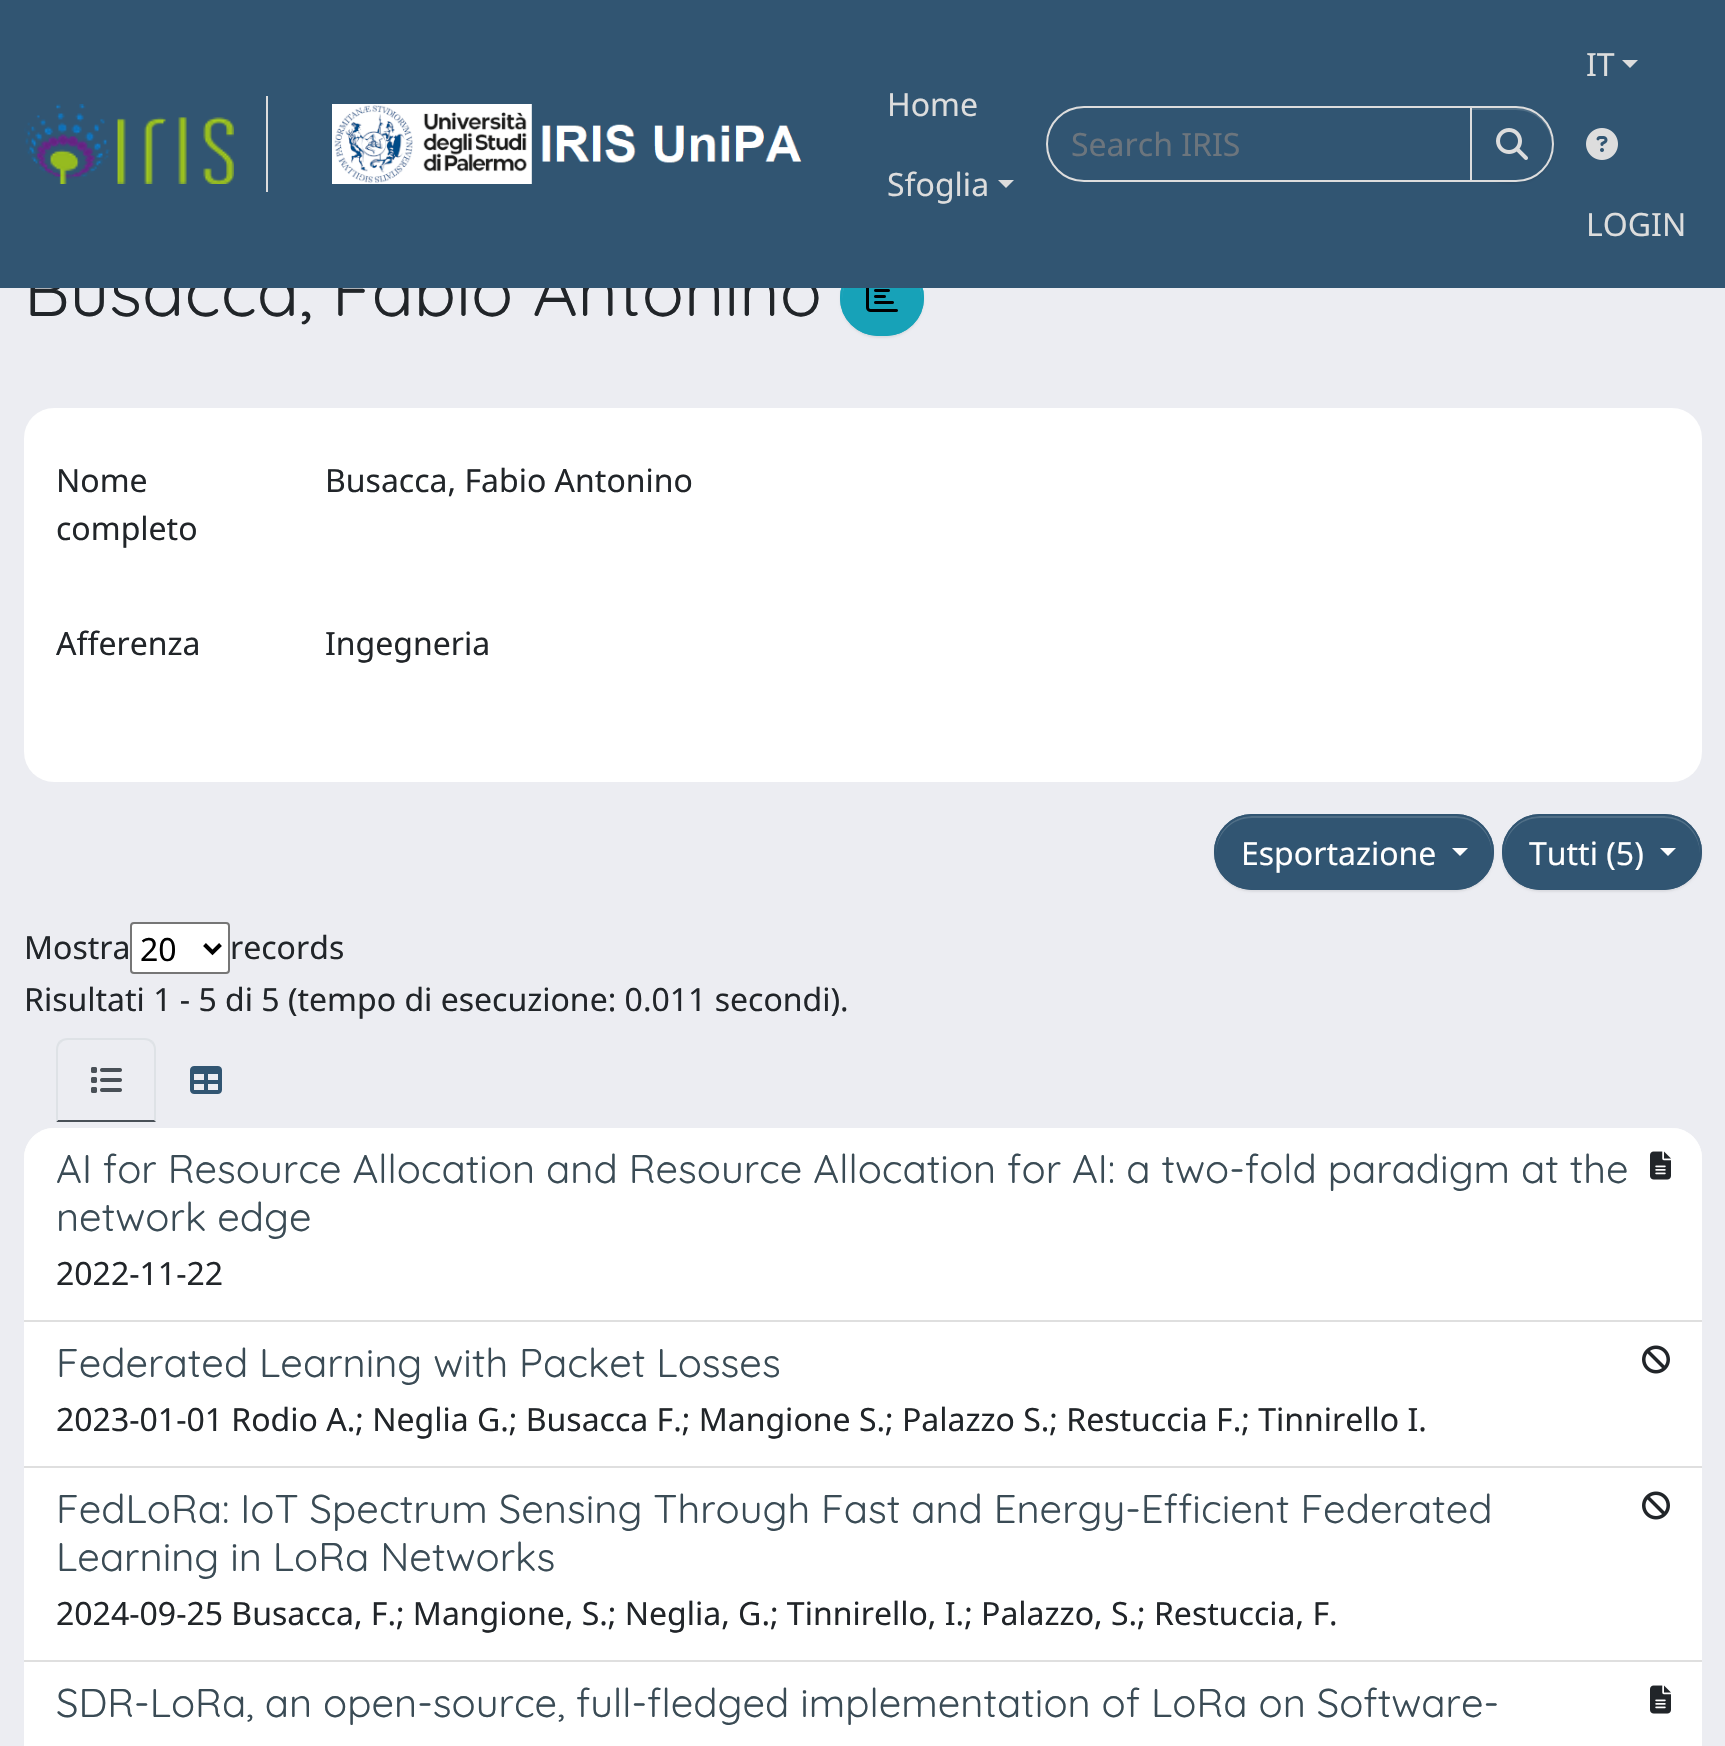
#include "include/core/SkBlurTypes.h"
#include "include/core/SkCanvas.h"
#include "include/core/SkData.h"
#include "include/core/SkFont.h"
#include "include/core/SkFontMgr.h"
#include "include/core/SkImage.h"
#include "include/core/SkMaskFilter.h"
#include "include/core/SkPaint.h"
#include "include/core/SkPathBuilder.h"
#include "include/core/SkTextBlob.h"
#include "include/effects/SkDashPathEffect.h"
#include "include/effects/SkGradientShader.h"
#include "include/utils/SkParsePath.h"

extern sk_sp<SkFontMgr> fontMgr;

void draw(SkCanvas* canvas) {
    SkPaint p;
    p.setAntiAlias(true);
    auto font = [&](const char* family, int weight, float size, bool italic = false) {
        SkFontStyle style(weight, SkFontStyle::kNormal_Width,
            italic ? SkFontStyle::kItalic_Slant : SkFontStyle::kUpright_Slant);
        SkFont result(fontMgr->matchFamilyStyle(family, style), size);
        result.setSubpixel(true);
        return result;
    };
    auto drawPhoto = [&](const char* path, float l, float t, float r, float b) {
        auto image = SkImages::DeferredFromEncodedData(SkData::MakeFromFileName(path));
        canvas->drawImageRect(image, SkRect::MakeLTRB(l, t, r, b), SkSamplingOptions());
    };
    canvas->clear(0xFFECEDF2);
    auto font1 = font("Quicksand", 300, 69.9f);
    p.setColor(0xFF212529);
    canvas->drawString("Busacca, Fabio Antonino", 24, 316, font1, p);
    p.setColor(0x12000000);
    p.setMaskFilter(SkMaskFilter::MakeBlur(kNormal_SkBlurStyle, 1));
    canvas->drawRoundRect(SkRect::MakeLTRB(840, 262, 924, 338), 38, 38, p);
    p.setMaskFilter(nullptr);
    p.setColor(0xFF17A2B8);
    canvas->drawRoundRect(SkRect::MakeLTRB(840, 260, 924, 336), 38, 38, p);
    p.setColor(0xFF3AB0C3);
    canvas->drawPath(SkPathBuilder().moveTo(878, 264).lineTo(886, 264).cubicTo(906, 264, 921, 279, 922, 299).cubicTo(922, 284, 914, 271, 900, 265).cubicTo(894, 262, 889, 262, 883, 262).lineTo(871, 263).cubicTo(854, 266, 842, 282, 842, 299).cubicTo(843, 279, 858, 264, 878, 264).close().detach(), p);
    p.setStyle(SkPaint::kStroke_Style);
    p.setStrokeWidth(2);
    p.setColor(0xFF17A2B8);
    canvas->drawRoundRect(SkRect::MakeLTRB(841, 261, 923, 335), 37, 37, p);
    p.setStyle(SkPaint::kFill_Style);
    p.setColor(0xFF315572);
    canvas->drawRect(SkRect::MakeLTRB(0, 0, 1725, 288), p);
    p.setColor(0xFFDDDDDD);
    canvas->drawRect(SkRect::MakeLTRB(266, 96, 268, 192), p);
    drawPhoto("media/1.png", 24, 104, 234, 184);
    drawPhoto("media/2.png", 332, 104, 802, 184);
    auto font2 = font("Noto Sans", 400, 32);
    canvas->drawString("Home", 887, 116, font2, p);
    canvas->drawString("Sfoglia", 887, 196, font2, p);
    canvas->drawPath(SkPathBuilder().moveTo(998, 180).lineTo(1014, 180).lineTo(1006, 188).close().detach(), p);
    p.setStyle(SkPaint::kStroke_Style);
    canvas->drawPath(SkPathBuilder().moveTo(1084, 107).lineTo(1471, 107).lineTo(1471, 181).lineTo(1084, 181).cubicTo(1063.5f, 181, 1047, 164.5f, 1047, 144).cubicTo(1047, 123.5f, 1063.5f, 107, 1084, 107).close().detach(), p);
    p.setStyle(SkPaint::kFill_Style);
    p.setColor(0xFF6C757D);
    canvas->drawString("Search IRIS", 1071, 156, font2, p);
    p.setColor(0x12000000);
    p.setMaskFilter(SkMaskFilter::MakeBlur(kNormal_SkBlurStyle, 1));
    canvas->drawRoundRect(SkRect::MakeLTRB(1470, 108, 1554, 184), 38, 38, p);
    p.setMaskFilter(nullptr);
    p.setColor(0xFF315572);
    canvas->drawPath(SkPathBuilder().moveTo(1470, 106).lineTo(1516, 106).cubicTo(1537, 106, 1554, 123, 1554, 144).cubicTo(1554, 165, 1537, 182, 1516, 182).lineTo(1470, 182).close().detach(), p);
    p.setColor(0xFF506F87);
    canvas->drawPath(SkPathBuilder().moveTo(1472, 110).lineTo(1516, 110).cubicTo(1536, 110, 1551, 125, 1552, 145).lineTo(1552, 144).cubicTo(1552, 124, 1536, 108, 1516, 108).lineTo(1472, 108).close().detach(), p);
    p.setStyle(SkPaint::kStroke_Style);
    p.setColor(0xFFDDDDDD);
    canvas->drawPath(SkPathBuilder().moveTo(1471, 107).lineTo(1516, 107).cubicTo(1536.5f, 107, 1553, 123.5f, 1553, 144).cubicTo(1553, 164.5f, 1536.5f, 181, 1516, 181).lineTo(1471, 181).close().detach(), p);
    drawPhoto("media/3.png", 1496, 128, 1528, 160);
    p.setStyle(SkPaint::kFill_Style);
    canvas->drawString("IT", 1586, 76, font2, p);
    canvas->drawPath(SkPathBuilder().moveTo(1622, 60).lineTo(1638, 60).lineTo(1630, 68).close().detach(), p);
    drawPhoto("media/4.png", 1586, 128, 1618, 160);
    canvas->drawString("LOGIN", 1586, 236, font2, p);
    drawPhoto("media/5.png", 866, 288, 898, 312);
    p.setColor(0xFFFFFFFF);
    canvas->drawRoundRect(SkRect::MakeLTRB(24, 408, 1702, 782), 30, 30, p);
    p.setColor(0xFF212529);
    {
        const struct { const char* s; float x, y; } items[] = {
            {"Nome", 56, 492},
            {"completo", 56, 540},
            {"Busacca, Fabio Antonino", 325, 492},
            {"Afferenza", 56, 655},
            {"Ingegneria", 325, 655},
        };
        for (auto [s, x, y] : items) {
            canvas->drawString(s, x, y, font2, p);
        }
    }
    p.setColor(0x12000000);
    p.setMaskFilter(SkMaskFilter::MakeBlur(kNormal_SkBlurStyle, 1));
    canvas->drawRoundRect(SkRect::MakeLTRB(1214, 816, 1494, 892), 38, 38, p);
    p.setMaskFilter(nullptr);
    p.setColor(0xFF315572);
    canvas->drawRoundRect(SkRect::MakeLTRB(1214, 814, 1494, 890), 38, 38, p);
    p.setColor(0xFF506F87);
    canvas->drawPath(SkPathBuilder().moveTo(1252, 818).lineTo(1456, 818).cubicTo(1476, 818, 1491, 833, 1492, 853).lineTo(1492, 852).cubicTo(1492, 832, 1476, 816, 1456, 816).lineTo(1252, 816).cubicTo(1232, 816, 1216, 832, 1216, 852).lineTo(1216, 853).cubicTo(1217, 833, 1232, 818, 1252, 818).close().detach(), p);
    p.setStyle(SkPaint::kStroke_Style);
    p.setColor(0xFF315572);
    canvas->drawRoundRect(SkRect::MakeLTRB(1215, 815, 1493, 889), 37, 37, p);
    p.setStyle(SkPaint::kFill_Style);
    p.setColor(0xFFFFFFFF);
    canvas->drawString("Esportazione", 1241, 865, font2, p);
    canvas->drawPath(SkPathBuilder().moveTo(1452, 848).lineTo(1468, 848).lineTo(1460, 856).close().detach(), p);
    p.setColor(0x12000000);
    p.setMaskFilter(SkMaskFilter::MakeBlur(kNormal_SkBlurStyle, 1));
    canvas->drawRoundRect(SkRect::MakeLTRB(1502, 816, 1702, 892), 38, 38, p);
    p.setMaskFilter(nullptr);
    p.setColor(0xFF315572);
    canvas->drawRoundRect(SkRect::MakeLTRB(1502, 814, 1702, 890), 38, 38, p);
    p.setColor(0xFF506F87);
    canvas->drawPath(SkPathBuilder().moveTo(1540, 818).lineTo(1664, 818).cubicTo(1684, 818, 1699, 833, 1700, 853).lineTo(1700, 852).cubicTo(1700, 832, 1684, 816, 1664, 816).lineTo(1540, 816).cubicTo(1520, 816, 1504, 832, 1504, 852).lineTo(1504, 853).cubicTo(1505, 833, 1520, 818, 1540, 818).close().detach(), p);
    p.setStyle(SkPaint::kStroke_Style);
    p.setColor(0xFF315572);
    canvas->drawRoundRect(SkRect::MakeLTRB(1503, 815, 1701, 889), 37, 37, p);
    p.setStyle(SkPaint::kFill_Style);
    p.setColor(0xFFFFFFFF);
    canvas->drawString("Tutti (5)", 1529, 865, font2, p);
    canvas->drawPath(SkPathBuilder().moveTo(1660, 848).lineTo(1676, 848).lineTo(1668, 856).close().detach(), p);
    p.setColor(0xFF212529);
    canvas->drawString("Mostra", 24, 959, font2, p);
    p.setColor(0xFFFFFFFF);
    canvas->drawRoundRect(SkRect::MakeLTRB(131, 923, 229, 973), 3, 3, p);
    p.setStyle(SkPaint::kStroke_Style);
    p.setColor(0xFF767676);
    canvas->drawRoundRect(SkRect::MakeLTRB(131, 923, 229, 973), 3, 3, p);
    p.setStrokeWidth(4);
    p.setColor(0xFF000000);
    canvas->drawPath(SkPathBuilder().moveTo(204.5f, 944.5f).lineTo(212.5f, 952.5f).lineTo(220.5f, 944.5f).detach(), p);
    p.setStyle(SkPaint::kFill_Style);
    canvas->drawString("20", 140, 961, font2, p);
    p.setColor(0xFF212529);
    canvas->drawString("records", 230, 959, font2, p);
    canvas->drawString("Risultati 1 - 5 di 5 (tempo di esecuzione: 0.011 secondi).", 24, 1011, font2, p);
    p.setColor(0xFFDEE2E6);
    canvas->drawPath(SkPathBuilder().moveTo(68, 1038).cubicTo(64, 1038, 62, 1039, 59, 1041).lineTo(61, 1043).cubicTo(62, 1041, 65, 1040, 68, 1040).lineTo(144, 1040).cubicTo(147, 1040, 150, 1041, 151, 1043).lineTo(153, 1041).cubicTo(150, 1039, 148, 1038, 144, 1038).close().detach(), p);
    canvas->drawPath(SkPathBuilder().moveTo(156, 1122).lineTo(156, 1050).cubicTo(156, 1046, 155, 1044, 153, 1041).lineTo(151, 1043).cubicTo(153, 1044, 154, 1047, 154, 1050).lineTo(154, 1120).close().detach(), p);
    p.setColor(0xFF495057);
    canvas->drawPath(SkPathBuilder().moveTo(156, 1122).lineTo(154, 1120).lineTo(58, 1120).lineTo(56, 1122).close().detach(), p);
    p.setColor(0xFFDEE2E6);
    canvas->drawPath(SkPathBuilder().moveTo(56, 1122).lineTo(58, 1120).lineTo(58, 1050).cubicTo(58, 1047, 59, 1044, 61, 1043).lineTo(59, 1041).cubicTo(57, 1044, 56, 1046, 56, 1050).close().detach(), p);
    drawPhoto("media/6.png", 91, 1067, 122, 1093);
    drawPhoto("media/7.png", 190, 1066, 222, 1094);
    p.setColor(0xFFFFFFFF);
    canvas->drawRoundRect(SkRect::MakeLTRB(24, 1128, 1702, 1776), 30, 30, p);
    canvas->drawPath(SkPathBuilder().moveTo(54, 1128).lineTo(1672, 1128).cubicTo(1688.5f, 1128, 1702, 1141.5f, 1702, 1158).lineTo(1702, 1322).lineTo(24, 1322).lineTo(24, 1158).cubicTo(24, 1141.5f, 37.5f, 1128, 54, 1128).close().detach(), p);
    p.setColor(0xFFDFDFDF);
    canvas->drawRect(SkRect::MakeLTRB(24, 1320, 1702, 1322), p);
    auto font3 = font("Quicksand", 300, 40);
    p.setColor(0xFF3A4B55);
    canvas->drawString("AI for Resource Allocation and Resource Allocation for AI: a two-fold paradigm at the", 56, 1183, font3, p);
    canvas->drawString("network edge", 56, 1231, font3, p);
    drawPhoto("media/8.png", 1650, 1151, 1671, 1180);
    p.setColor(0xFF212529);
    canvas->drawString("2022-11-22", 56, 1285, font2, p);
    p.setColor(0xFFDFDFDF);
    canvas->drawRect(SkRect::MakeLTRB(24, 1466, 1702, 1468), p);
    p.setColor(0xFF3A4B55);
    canvas->drawString("Federated Learning with Packet Losses", 56, 1377, font3, p);
    drawPhoto("media/9.png", 1642, 1345, 1670, 1374);
    p.setColor(0xFF212529);
    canvas->drawString("2023-01-01 Rodio A.; Neglia G.; Busacca F.; Mangione S.; Palazzo S.; Restuccia F.; Tinnirello I.", 56, 1431, font2, p);
    p.setColor(0xFFDFDFDF);
    canvas->drawRect(SkRect::MakeLTRB(24, 1660, 1702, 1662), p);
    p.setColor(0xFF3A4B55);
    canvas->drawString("FedLoRa: IoT Spectrum Sensing Through Fast and Energy-Efficient Federated", 56, 1523, font3, p);
    canvas->drawString("Learning in LoRa Networks", 56, 1571, font3, p);
    drawPhoto("media/9.png", 1642, 1491, 1670, 1520);
    p.setColor(0xFF212529);
    canvas->drawString("2024-09-25 Busacca, F.; Mangione, S.; Neglia, G.; Tinnirello, I.; Palazzo, S.; Restuccia, F.", 56, 1625, font2, p);
    p.setColor(0xFF3A4B55);
    canvas->drawString("SDR-LoRa, an open-source, full-fledged implementation of LoRa on Software-", 56, 1717, font3, p);
    drawPhoto("media/8.png", 1650, 1685, 1671, 1714);
}
